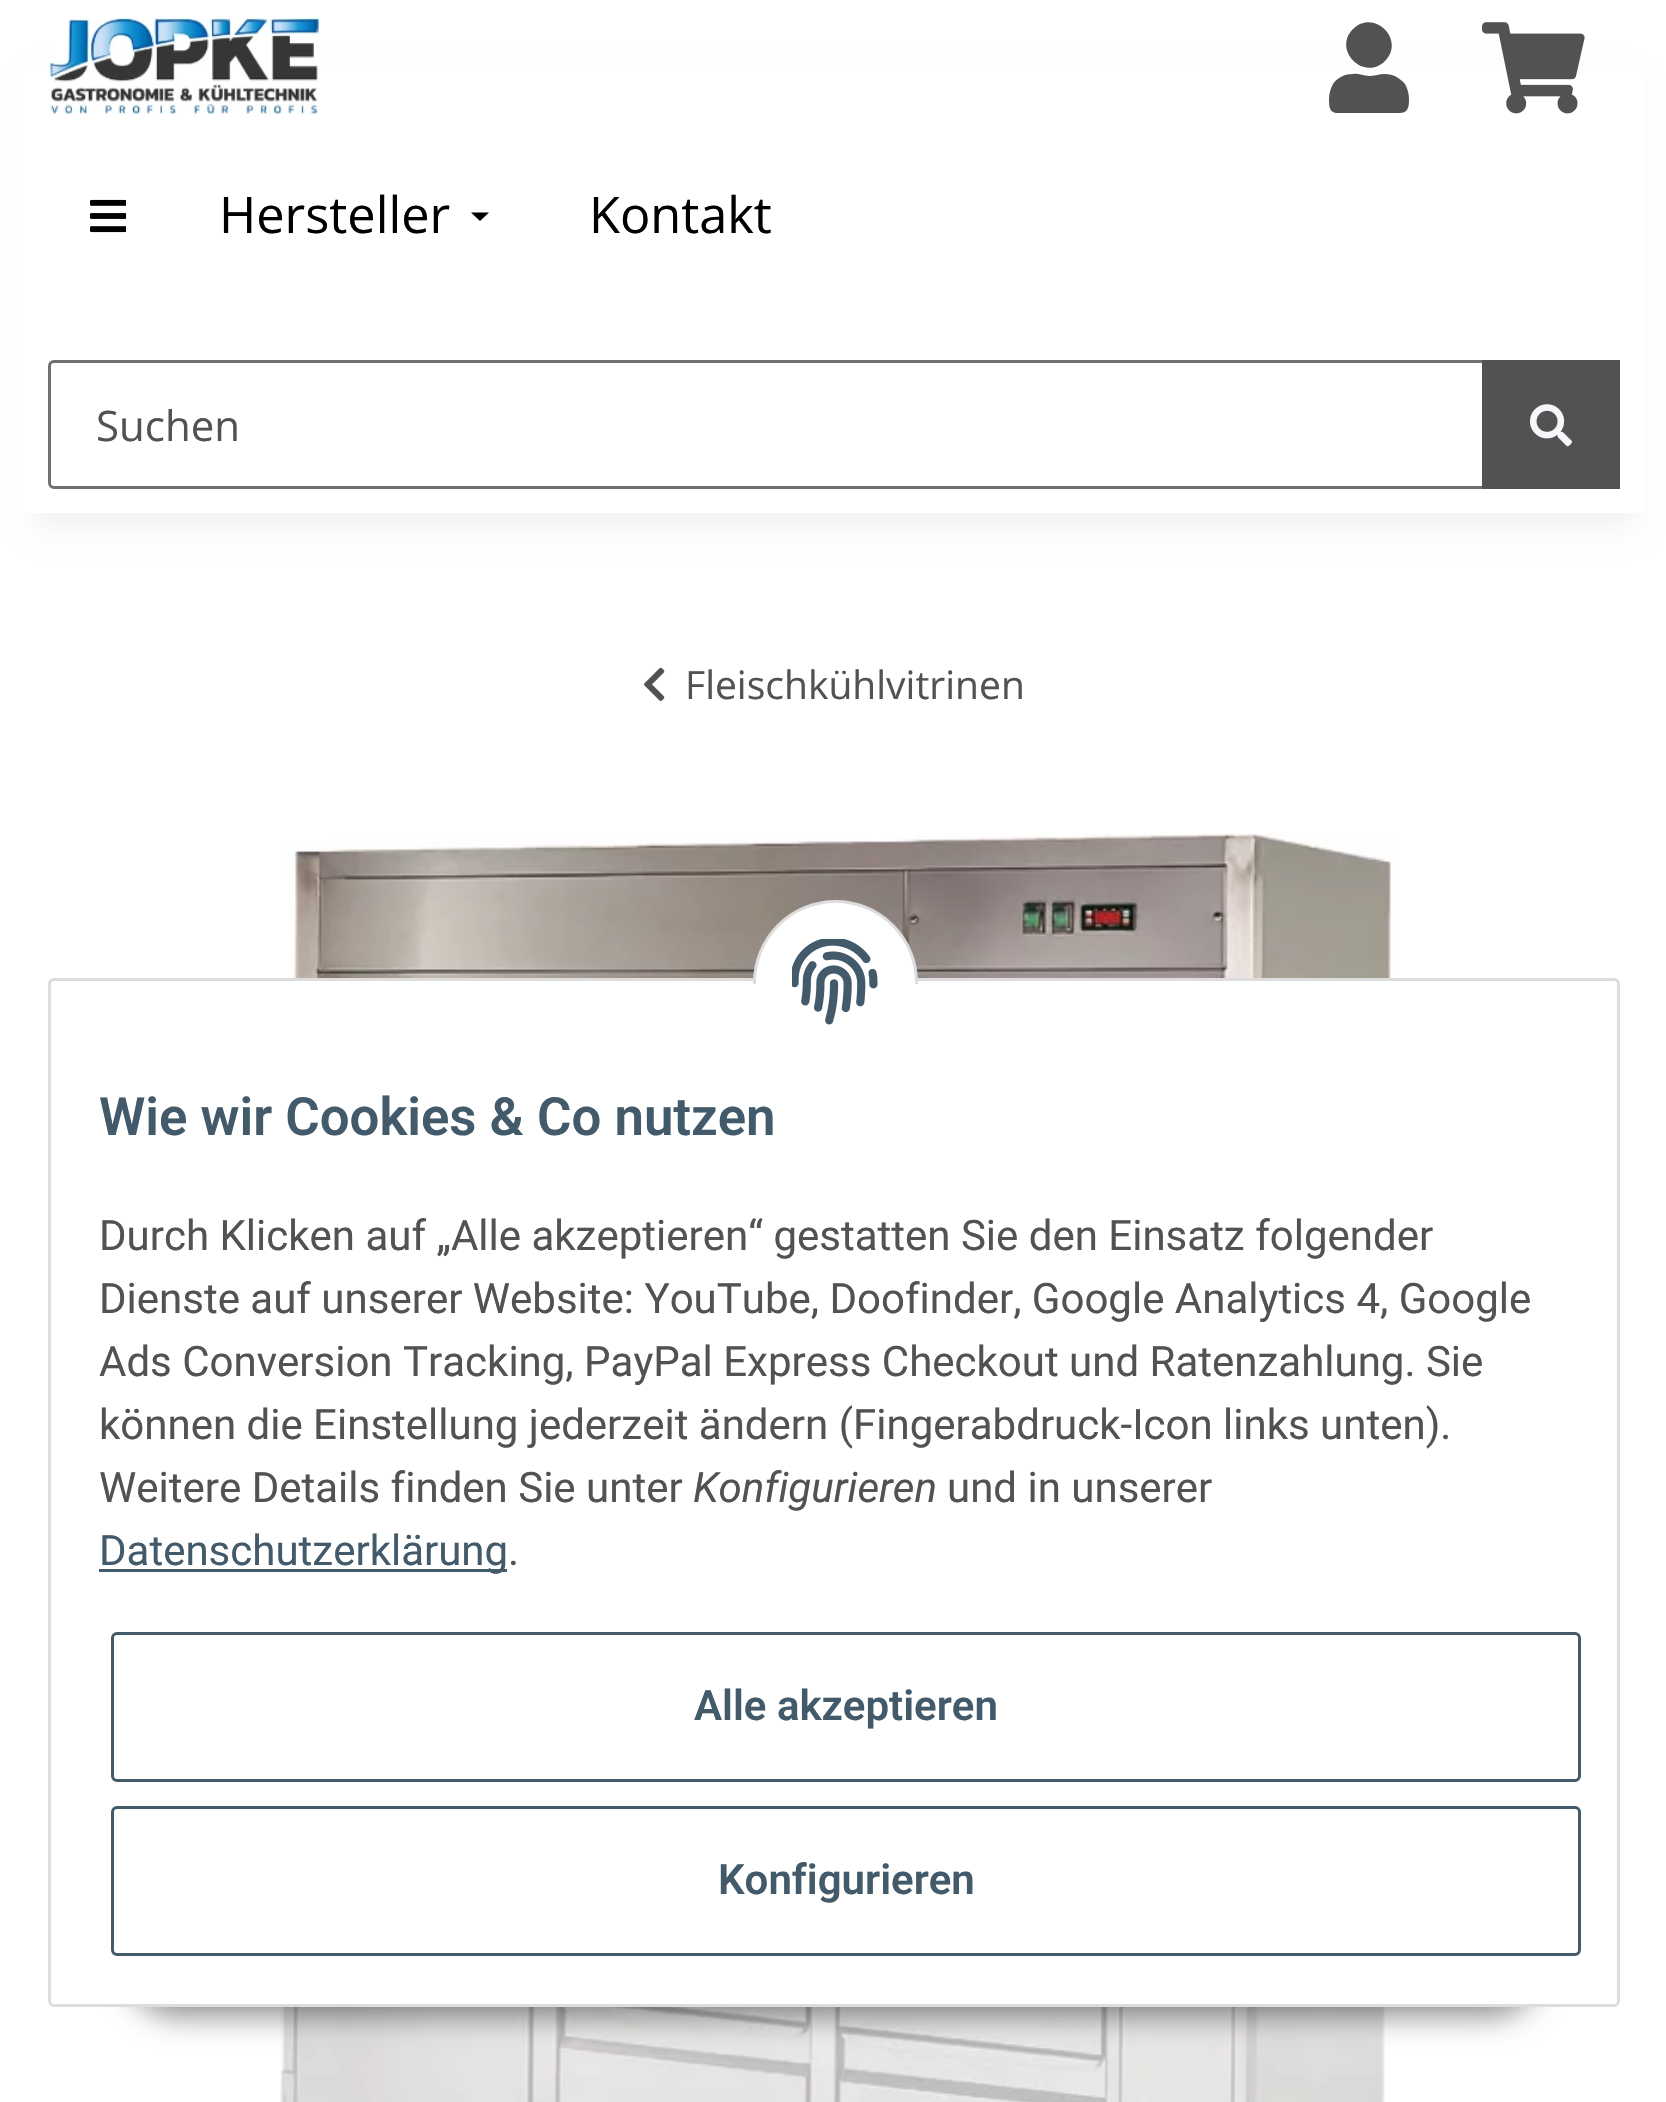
#include "include/core/SkBlurTypes.h"
#include "include/core/SkCanvas.h"
#include "include/core/SkData.h"
#include "include/core/SkFont.h"
#include "include/core/SkFontMgr.h"
#include "include/core/SkImage.h"
#include "include/core/SkMaskFilter.h"
#include "include/core/SkPaint.h"
#include "include/core/SkPathBuilder.h"
#include "include/core/SkTextBlob.h"
#include "include/effects/SkDashPathEffect.h"
#include "include/effects/SkGradientShader.h"
#include "include/utils/SkParsePath.h"

extern sk_sp<SkFontMgr> fontMgr;

void draw(SkCanvas* canvas) {
    SkPaint p;
    p.setAntiAlias(true);
    auto font = [&](const char* family, int weight, float size, bool italic = false) {
        SkFontStyle style(weight, SkFontStyle::kNormal_Width,
            italic ? SkFontStyle::kItalic_Slant : SkFontStyle::kUpright_Slant);
        SkFont result(fontMgr->matchFamilyStyle(family, style), size);
        result.setSubpixel(true);
        return result;
    };
    auto drawPhoto = [&](const char* path, float l, float t, float r, float b) {
        auto image = SkImages::DeferredFromEncodedData(SkData::MakeFromFileName(path));
        canvas->drawImageRect(image, SkRect::MakeLTRB(l, t, r, b), SkSamplingOptions());
    };
    canvas->clear(0xFFFFFFFF);
    p.setColor(0x0F000000);
    p.setMaskFilter(SkMaskFilter::MakeBlur(kNormal_SkBlurStyle, 13.5f));
    canvas->drawRect(SkRect::MakeLTRB(36, 84, 1632, 525), p);
    p.setMaskFilter(nullptr);
    p.setColor(0xFFFFFFFF);
    canvas->drawRect(SkRect::MakeLTRB(23, 71, 1645, 513), p);
    drawPhoto("media/1.png", 49, 18, 320, 115);
    p.setColor(0xFF525252);
    canvas->drawPath(SkPathBuilder().moveTo(1385, 61).cubicTo(1364, 82, 1332, 50, 1353, 29).cubicTo(1374, 8, 1406, 40, 1385, 61).close().moveTo(1385, 74).cubicTo(1393, 74, 1400, 78, 1405, 84).cubicTo(1408, 89, 1409, 95, 1409, 100).cubicTo(1409, 115, 1403, 113, 1390, 113).lineTo(1348, 113).cubicTo(1334, 113, 1329, 115, 1329, 100).cubicTo(1329, 95, 1330, 89, 1333, 84).cubicTo(1338, 77, 1345, 74, 1353, 74).cubicTo(1358, 73, 1363, 76, 1369, 76).cubicTo(1375, 76, 1379, 74, 1385, 74).close().detach(), p);
    drawPhoto("media/2.png", 1482, 22, 1585, 114);
    drawPhoto("media/3.png", 90, 199, 126, 233);
    auto font1 = font("Open Sans", 400, 50.5f);
    p.setColor(0xFF000000);
    canvas->drawString("Hersteller", 219, 233, font1, p);
    canvas->drawPath(SkPathBuilder().moveTo(471, 212.5f).lineTo(489, 212.5f).lineTo(480, 221).close().detach(), p);
    canvas->drawString("Kontakt", 589, 233, font1, p);
    p.setStyle(SkPaint::kStroke_Style);
    p.setStrokeWidth(3);
    p.setColor(0xFF707070);
    canvas->drawPath(SkPathBuilder().moveTo(54, 361.5f).lineTo(1483.5f, 361.5f).lineTo(1483.5f, 487.5f).lineTo(54, 487.5f).cubicTo(51.5f, 487.5f, 49.5f, 485.5f, 49.5f, 483).lineTo(49.5f, 366).cubicTo(49.5f, 363.5f, 51.5f, 361.5f, 54, 361.5f).close().detach(), p);
    auto font2 = font("Open Sans", 400, 42);
    p.setStyle(SkPaint::kFill_Style);
    p.setColor(0xFF525252);
    canvas->drawString("Suchen", 96, 441, font2, p);
    canvas->drawRect(SkRect::MakeLTRB(1482, 360, 1620, 489), p);
    drawPhoto("media/4.png", 1530, 404, 1572, 447);
    drawPhoto("media/5.png", 644, 667, 665, 701);
    auto font3 = font("Open Sans", 400, 39);
    canvas->drawString("Fleischkühlvitrinen", 685, 699, font3, p);
    drawPhoto("media/6.png", 280, 834, 1393, 2102);
    p.setColor(0x73000000);
    p.setMaskFilter(SkMaskFilter::MakeBlur(kNormal_SkBlurStyle, 15));
    canvas->drawRoundRect(SkRect::MakeLTRB(129, 1920, 1539, 2016), 48, 48, p);
    p.setMaskFilter(nullptr);
    p.setColor(0xFFFFFFFF);
    canvas->drawRoundRect(SkRect::MakeLTRB(49.5f, 979.5f, 1618.5f, 2005.5f), 4.5f, 4.5f, p);
    p.setStyle(SkPaint::kStroke_Style);
    p.setColor(0xFFDDDDDD);
    canvas->drawRoundRect(SkRect::MakeLTRB(49.5f, 979.5f, 1618.5f, 2005.5f), 4.5f, 4.5f, p);
    p.setStyle(SkPaint::kFill_Style);
    p.setColor(0xFFFFFFFF);
    canvas->drawCircle(835.5f, 982.5f, 81, p);
    p.setStyle(SkPaint::kStroke_Style);
    p.setColor(0xFFDDDDDD);
    canvas->drawCircle(835.5f, 982.5f, 81, p);
    p.setStyle(SkPaint::kFill_Style);
    p.setColor(0xFFFFFFFF);
    canvas->drawRect(SkRect::MakeLTRB(753, 984, 918, 1065), p);
    drawPhoto("media/7.png", 792, 939, 878, 1025);
    auto font4 = font("Roboto", 600, 52.75f);
    p.setColor(0xFF435A6B);
    canvas->drawString("Wie wir Cookies & Co nutzen", 99, 1135, font4, p);
    auto font5 = font("Roboto", 400, 42);
    p.setColor(0xFF525252);
    {
        const struct { const char* s; float x, y; } items[] = {
            {"Durch Klicken auf „Alle akzeptieren“ gestatten Sie den Einsatz folgender", 99, 1250},
            {"Dienste auf unserer Website: YouTube, Doofinder, Google Analytics 4, Google", 99, 1313},
            {"Ads Conversion Tracking, PayPal Express Checkout und Ratenzahlung. Sie", 99, 1376},
            {"können die Einstellung jederzeit ändern (Fingerabdruck-Icon links unten).", 99, 1439},
            {"Weitere Details finden Sie unter", 99, 1502},
        };
        for (auto [s, x, y] : items) {
            canvas->drawString(s, x, y, font5, p);
        }
    }
    auto font6 = font("Roboto", 400, 42, true);
    canvas->drawString("Konfigurieren", 693, 1502, font6, p);
    canvas->drawString("und in unserer", 947, 1502, font5, p);
    p.setColor(0xFF435A6B);
    canvas->drawRect(SkRect::MakeLTRB(99, 1569, 507, 1572), p);
    canvas->drawString("Datenschutzerklärung", 99, 1565, font5, p);
    p.setColor(0xFF525252);
    canvas->drawString(".", 508, 1565, font5, p);
    p.setStyle(SkPaint::kStroke_Style);
    p.setColor(0xFF435A6B);
    canvas->drawRoundRect(SkRect::MakeLTRB(112.5f, 1633.5f, 1579.5f, 1780.5f), 4.5f, 4.5f, p);
    auto font7 = font("Roboto", 600, 42);
    p.setStyle(SkPaint::kFill_Style);
    canvas->drawString("Alle akzeptieren", 694, 1720, font7, p);
    p.setStyle(SkPaint::kStroke_Style);
    canvas->drawRoundRect(SkRect::MakeLTRB(112.5f, 1807.5f, 1579.5f, 1954.5f), 4.5f, 4.5f, p);
    p.setStyle(SkPaint::kFill_Style);
    canvas->drawString("Konfigurieren", 718, 1894, font7, p);
}
